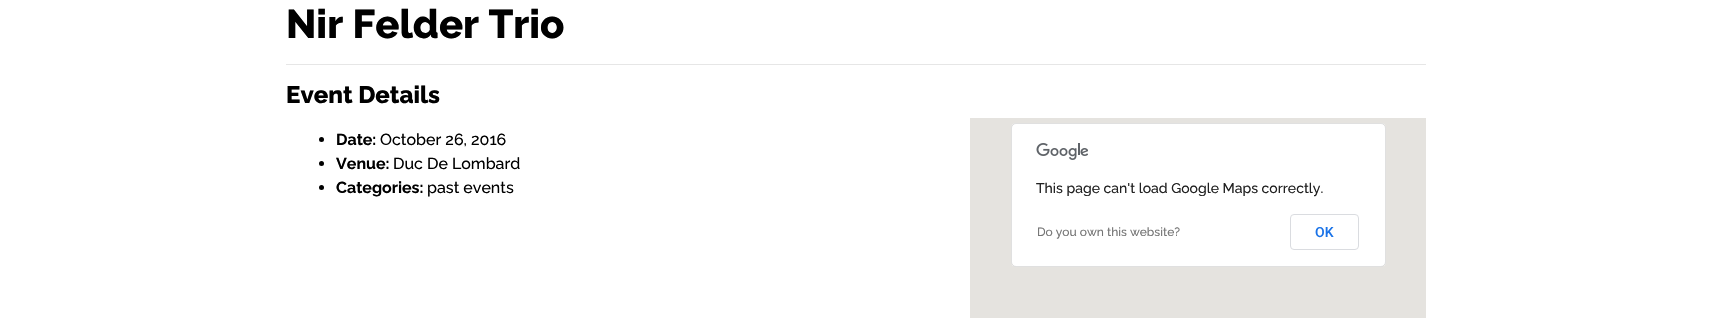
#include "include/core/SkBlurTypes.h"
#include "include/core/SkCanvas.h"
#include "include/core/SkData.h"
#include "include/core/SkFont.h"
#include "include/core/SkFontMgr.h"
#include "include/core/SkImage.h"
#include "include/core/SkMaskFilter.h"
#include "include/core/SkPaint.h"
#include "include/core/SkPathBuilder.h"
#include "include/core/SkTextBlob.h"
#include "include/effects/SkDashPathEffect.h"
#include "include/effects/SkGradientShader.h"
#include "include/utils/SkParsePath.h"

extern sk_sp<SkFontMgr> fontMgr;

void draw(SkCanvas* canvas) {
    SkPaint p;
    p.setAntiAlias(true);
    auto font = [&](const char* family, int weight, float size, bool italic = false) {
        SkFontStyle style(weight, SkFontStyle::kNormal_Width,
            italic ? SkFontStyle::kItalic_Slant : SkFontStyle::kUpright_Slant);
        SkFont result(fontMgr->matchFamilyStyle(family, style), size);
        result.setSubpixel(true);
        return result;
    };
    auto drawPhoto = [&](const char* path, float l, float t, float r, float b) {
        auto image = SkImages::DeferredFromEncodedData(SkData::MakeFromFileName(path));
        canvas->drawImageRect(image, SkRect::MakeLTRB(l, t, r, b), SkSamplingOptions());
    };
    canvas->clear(0xFFFFFFFF);
    auto font1 = font("Raleway", 800, 40);
    p.setColor(0xFF000000);
    canvas->drawString("Nir Felder Trio", 286, 38, font1, p);
    p.setColor(0xFFE6E6E6);
    canvas->drawRect(SkRect::MakeLTRB(286, 64, 1426, 65), p);
    auto font2 = font("Raleway", 800, 24);
    p.setColor(0xFF000000);
    canvas->drawString("Event Details", 286, 103, font2, p);
    canvas->drawCircle(321.5f, 139.5f, 2.5f, p);
    auto font3 = font("Raleway", 700, 16);
    canvas->drawString("Date:", 336, 145, font3, p);
    auto font4 = font("Raleway", 500, 16);
    canvas->drawString("October 26, 2016", 380, 145, font4, p);
    canvas->drawCircle(321.5f, 163.5f, 2.5f, p);
    canvas->drawString("Venue:", 336, 169, font3, p);
    canvas->drawString("Duc De Lombard", 393, 169, font4, p);
    canvas->drawCircle(321.5f, 187.5f, 2.5f, p);
    canvas->drawString("Categories:", 336, 193, font3, p);
    canvas->drawString("past events", 427, 193, font4, p);
    p.setColor(0xFFE5E3DF);
    canvas->drawRect(SkRect::MakeLTRB(970, 118, 1426, 318), p);
    p.setColor(0xFFFFFFFF);
    canvas->drawRoundRect(SkRect::MakeLTRB(1011, 123, 1386, 267), 5, 5, p);
    p.setStyle(SkPaint::kStroke_Style);
    p.setStrokeWidth(1);
    p.setColor(0x1F000000);
    canvas->drawRoundRect(SkRect::MakeLTRB(1011.5f, 123.5f, 1385.5f, 266.5f), 4.5f, 4.5f, p);
    drawPhoto("media/1.png", 1036, 143, 1088, 160);
    auto font5 = font("Raleway", 500, 14);
    p.setStyle(SkPaint::kFill_Style);
    p.setColor(0xFF212121);
    canvas->drawString("This page can't load Google Maps correctly.", 1036, 193, font5, p);
    auto font6 = font("Raleway", 500, 12);
    p.setColor(0xFF757575);
    canvas->drawString("Do you own this website?", 1037, 236, font6, p);
    p.setStyle(SkPaint::kStroke_Style);
    p.setColor(0xFFDADCE0);
    canvas->drawRoundRect(SkRect::MakeLTRB(1290.5f, 214.5f, 1358.5f, 249.5f), 3.5f, 3.5f, p);
    auto font7 = font("Roboto", 500, 14);
    p.setStyle(SkPaint::kFill_Style);
    p.setColor(0xFF1A73E8);
    canvas->drawString("OK", 1315, 237, font7, p);
}
